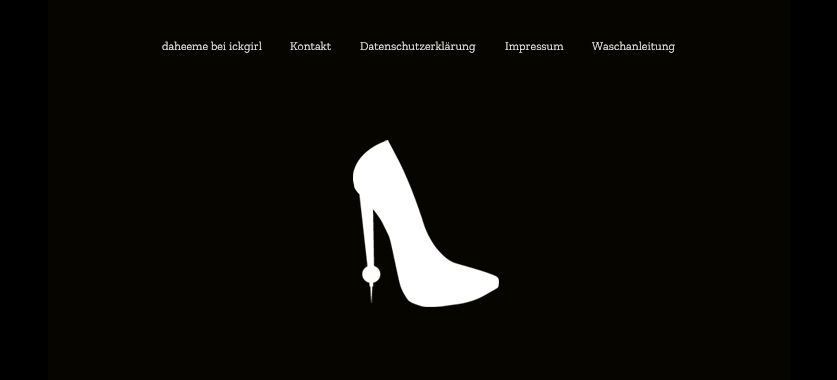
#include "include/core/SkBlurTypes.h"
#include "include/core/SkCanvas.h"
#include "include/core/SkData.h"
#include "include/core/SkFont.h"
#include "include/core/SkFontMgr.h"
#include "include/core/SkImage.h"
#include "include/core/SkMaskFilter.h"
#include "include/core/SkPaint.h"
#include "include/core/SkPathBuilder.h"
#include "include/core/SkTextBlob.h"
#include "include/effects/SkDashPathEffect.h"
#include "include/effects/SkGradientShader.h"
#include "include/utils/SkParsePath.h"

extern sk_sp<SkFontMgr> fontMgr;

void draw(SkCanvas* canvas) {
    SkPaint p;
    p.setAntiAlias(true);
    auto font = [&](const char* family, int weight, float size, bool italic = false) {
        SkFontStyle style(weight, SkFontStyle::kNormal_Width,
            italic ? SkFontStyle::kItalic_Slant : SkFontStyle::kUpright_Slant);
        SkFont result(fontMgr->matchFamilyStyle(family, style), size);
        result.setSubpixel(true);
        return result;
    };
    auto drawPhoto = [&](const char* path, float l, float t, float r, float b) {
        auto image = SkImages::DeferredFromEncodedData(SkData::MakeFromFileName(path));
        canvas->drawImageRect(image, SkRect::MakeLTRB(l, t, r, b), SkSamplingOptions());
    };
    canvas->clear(0xFF000000);
    p.setColor(0xFF070500);
    canvas->drawRect(SkRect::MakeLTRB(48, 0, 790, 380), p);
    auto font1 = font("Zilla Slab", 300, 12);
    p.setColor(0xFFFFFFFF);
    {
        const struct { const char* s; float x, y; } items[] = {
            {"daheeme bei ickgirl", 162, 50},
            {"Kontakt", 290, 50},
            {"Datenschutzerklärung", 360, 50},
            {"Impressum", 505, 50},
            {"Waschanleitung", 592, 50},
        };
        for (auto [s, x, y] : items) {
            canvas->drawString(s, x, y, font1, p);
        }
    }
    drawPhoto("media/1.png", 353, 140, 499, 307);
}
